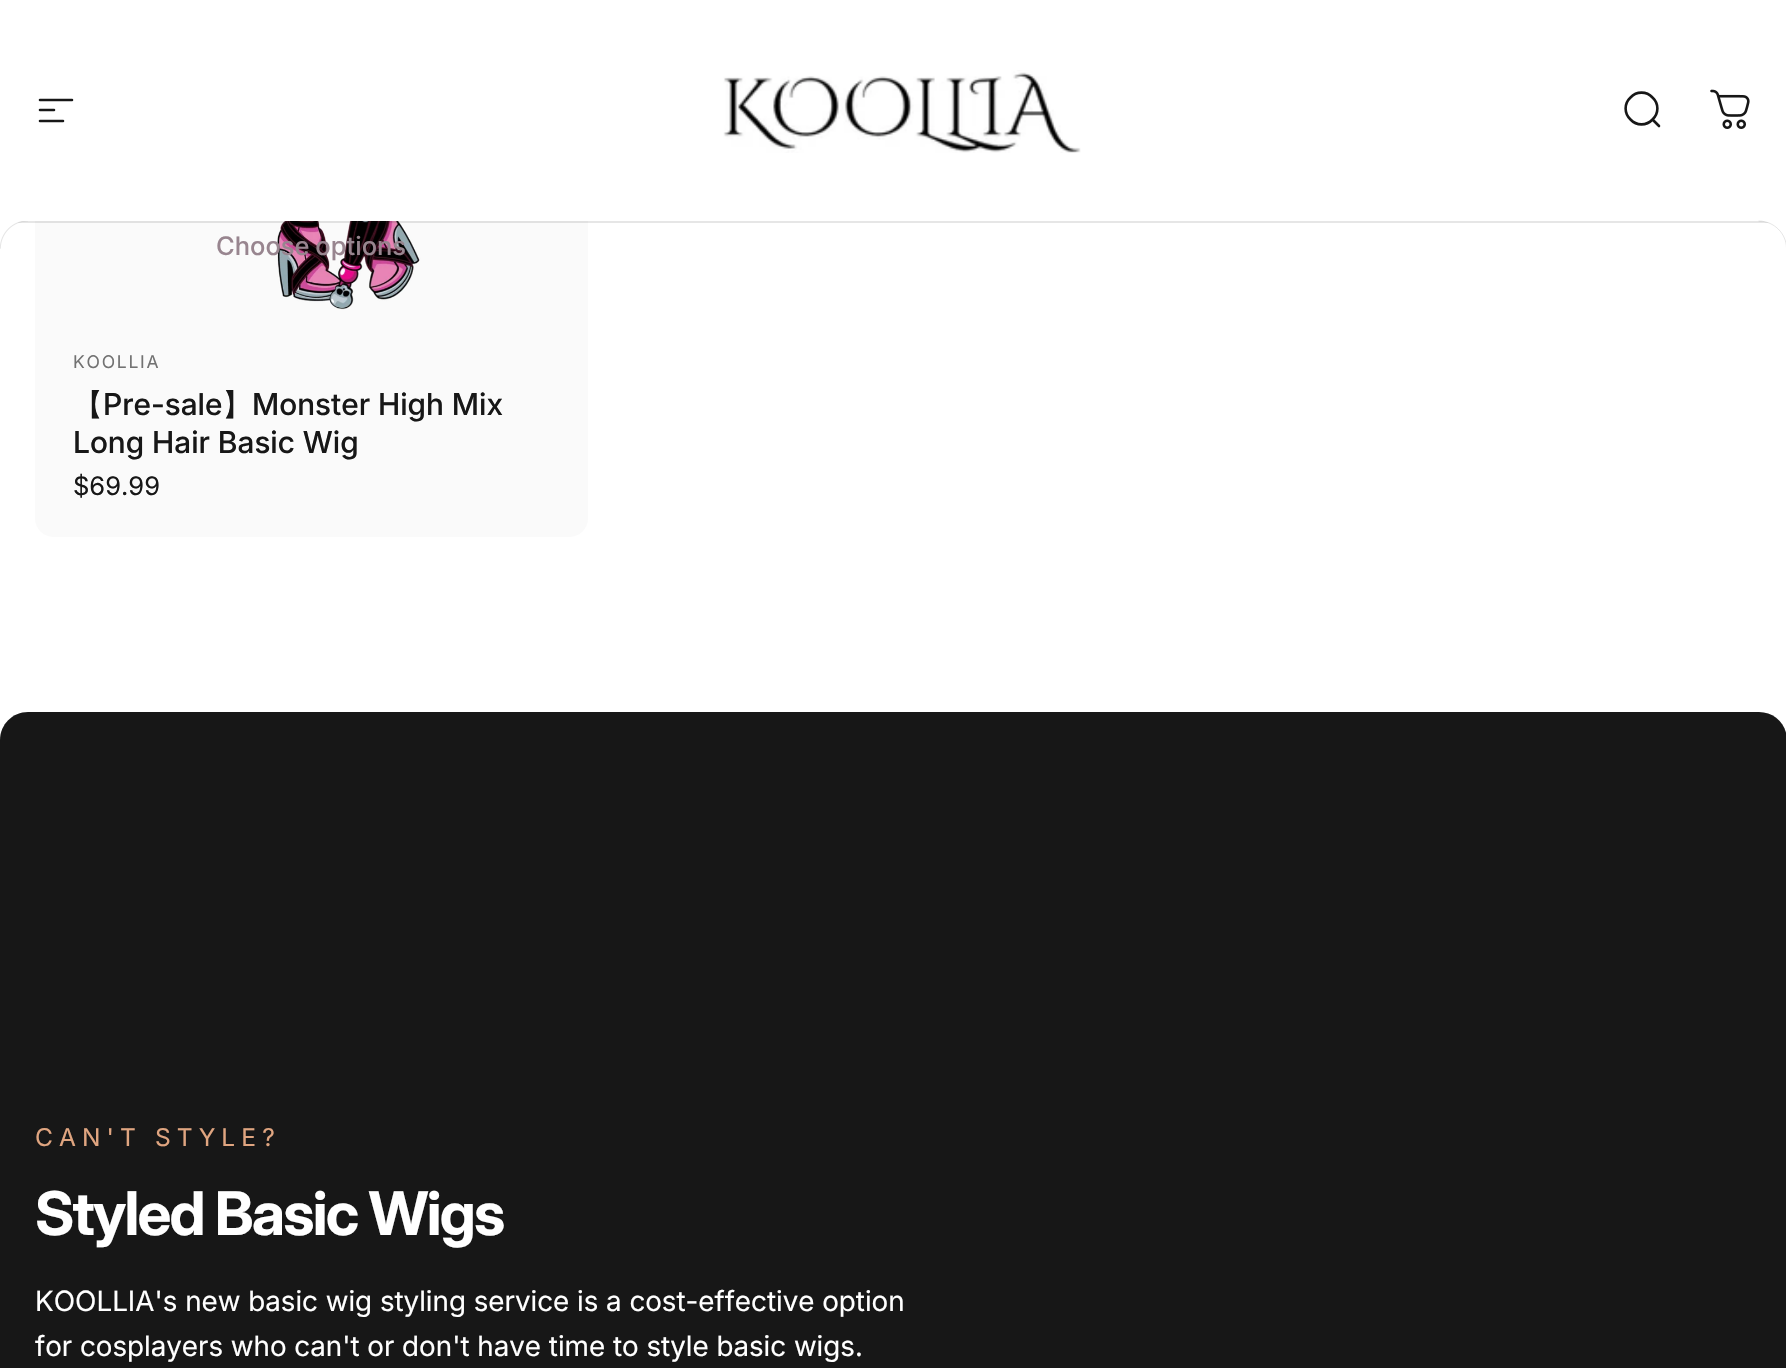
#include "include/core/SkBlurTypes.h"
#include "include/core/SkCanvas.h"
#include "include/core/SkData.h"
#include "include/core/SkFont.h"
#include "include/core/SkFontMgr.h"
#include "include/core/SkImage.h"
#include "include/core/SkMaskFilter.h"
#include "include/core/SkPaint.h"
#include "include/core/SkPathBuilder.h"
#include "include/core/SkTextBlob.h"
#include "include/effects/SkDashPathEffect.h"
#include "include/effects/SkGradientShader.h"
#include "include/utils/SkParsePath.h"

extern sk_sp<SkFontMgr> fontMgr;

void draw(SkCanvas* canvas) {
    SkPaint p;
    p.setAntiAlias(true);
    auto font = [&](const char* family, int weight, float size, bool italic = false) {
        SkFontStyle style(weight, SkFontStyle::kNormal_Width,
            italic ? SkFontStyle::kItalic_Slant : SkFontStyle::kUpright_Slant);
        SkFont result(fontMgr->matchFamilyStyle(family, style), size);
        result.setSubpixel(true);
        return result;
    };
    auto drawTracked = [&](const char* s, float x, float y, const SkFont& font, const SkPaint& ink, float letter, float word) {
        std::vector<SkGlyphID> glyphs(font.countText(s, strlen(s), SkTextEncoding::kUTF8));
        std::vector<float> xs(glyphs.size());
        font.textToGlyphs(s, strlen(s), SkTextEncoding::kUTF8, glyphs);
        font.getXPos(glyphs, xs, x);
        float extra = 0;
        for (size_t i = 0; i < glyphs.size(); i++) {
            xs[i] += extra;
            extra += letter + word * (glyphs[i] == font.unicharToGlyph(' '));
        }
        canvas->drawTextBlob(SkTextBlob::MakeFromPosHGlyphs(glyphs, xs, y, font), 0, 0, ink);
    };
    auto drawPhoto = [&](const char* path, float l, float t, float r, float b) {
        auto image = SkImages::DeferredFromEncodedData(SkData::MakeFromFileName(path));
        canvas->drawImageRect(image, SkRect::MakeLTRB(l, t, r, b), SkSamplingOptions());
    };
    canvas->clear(0xFFFFFFFF);
    p.setColor(0xFFFAFAFA);
    canvas->drawRoundRect(SkRect::MakeLTRB(35, -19, 588, 537), 19, 19, p);
    p.setColor(0xFFFFFFFF);
    canvas->drawRect(SkRect::MakeLTRB(35, 0, 1763, 221), p);
    p.setStyle(SkPaint::kStroke_Style);
    p.setStrokeWidth(2.6f);
    p.setStrokeCap(SkPaint::kRound_Cap);
    p.setColor(0xFF171717);
    canvas->drawPath(SkPathBuilder().moveTo(40, 100).lineTo(72, 100).moveTo(40, 110).lineTo(54, 110).moveTo(40, 121).lineTo(63, 121).detach(), p);
    drawPhoto("media/1.png", 723, 70, 1081, 153);
    canvas->drawPath(SkPathBuilder().moveTo(1659, 126).lineTo(1652.5f, 119.5f).moveTo(1652.5f, 119.5f).cubicTo(1659, 113.5f, 1659, 103.5f, 1652.5f, 97.5f).cubicTo(1646.5f, 91, 1636.5f, 91, 1630.5f, 97.5f).cubicTo(1624, 103.5f, 1624, 113.5f, 1630.5f, 119.5f).cubicTo(1636.5f, 126, 1646.5f, 126, 1652.5f, 119.5f).close().detach(), p);
    drawPhoto("media/2.png", 1710, 89, 1750, 129);
    drawPhoto("media/4.png", 275, 221, 421, 310);
    p.setStyle(SkPaint::kFill_Style);
    p.setColor(0x1C171717);
    canvas->drawRect(SkRect::MakeLTRB(17, 221, 1769, 223), p);
    drawPhoto("media/3.png", 0, 221, 28, 249);
    p.setColor(0xFFFFFFFF);
    canvas->drawPath(SkPathBuilder(SkPathFillType::kEvenOdd).moveTo(1758.5f, 220.5f).lineTo(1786.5f, 220.5f).lineTo(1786.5f, 248.5f).cubicTo(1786.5f, 233.5f, 1774, 221, 1758.5f, 221).close().detach(), p);
    p.setStyle(SkPaint::kStroke_Style);
    p.setStrokeWidth(1);
    p.setStrokeCap(SkPaint::kButt_Cap);
    p.setColor(0x1C171717);
    canvas->drawPath(SkPathBuilder().moveTo(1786.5f, 248.5f).cubicTo(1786.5f, 233.5f, 1774, 221, 1758.5f, 221).detach(), p);
    auto font1 = font("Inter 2", 500, 25.5f);
    p.setStyle(SkPaint::kFill_Style);
    p.setColor(0xFF98858F);
    drawTracked("Choose options", 216, 255, font1, p, 0, -1);
    auto font2 = font("Inter", 400, 17.5f);
    p.setColor(0xFF727272);
    drawTracked("KOOLLIA", 73, 368, font2, p, 1.75f, 0);
    auto font3 = font("WenQuanYi Zen Hei", 500, 30.1f);
    p.setColor(0xFF171717);
    canvas->drawString("【", 73, 415, font3, p);
    auto font4 = font("Inter", 500, 30.1f);
    canvas->drawString("Pre-sale", 103, 415, font4, p);
    canvas->drawString("】", 222, 415, font3, p);
    canvas->drawString("Monster High Mix", 252, 415, font4, p);
    canvas->drawString("Long Hair Basic Wig", 73, 453, font4, p);
    auto font5 = font("Inter", 400, 25.5f);
    canvas->drawString("$69.99", 73, 495, font5, p);
    canvas->drawPath(SkPathBuilder().moveTo(28, 712).lineTo(1759, 712).cubicTo(1774.5f, 712, 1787, 724.5f, 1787, 740).lineTo(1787, 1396).lineTo(0, 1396).lineTo(0, 740).cubicTo(0, 724.5f, 12.5f, 712, 28, 712).close().detach(), p);
    auto font6 = font("Inter", 400, 24.5f);
    p.setColor(0xFFE0A580);
    drawTracked("CAN'T STYLE?", 35, 1146, font6, p, 6.1f, 0);
    auto font7 = font("Inter", 700, 60.25f);
    p.setColor(0xFFFFFFFF);
    drawTracked("Styled Basic Wigs", 35, 1235, font7, p, -1.8f, 0);
    auto font8 = font("Inter 2", 400, 28);
    canvas->drawString("KOOLLIA's new basic wig styling service is a cost-effective option", 35, 1311, font8, p);
    canvas->drawString("for cosplayers who can't or don't have time to style basic wigs.", 35, 1356, font8, p);
}
